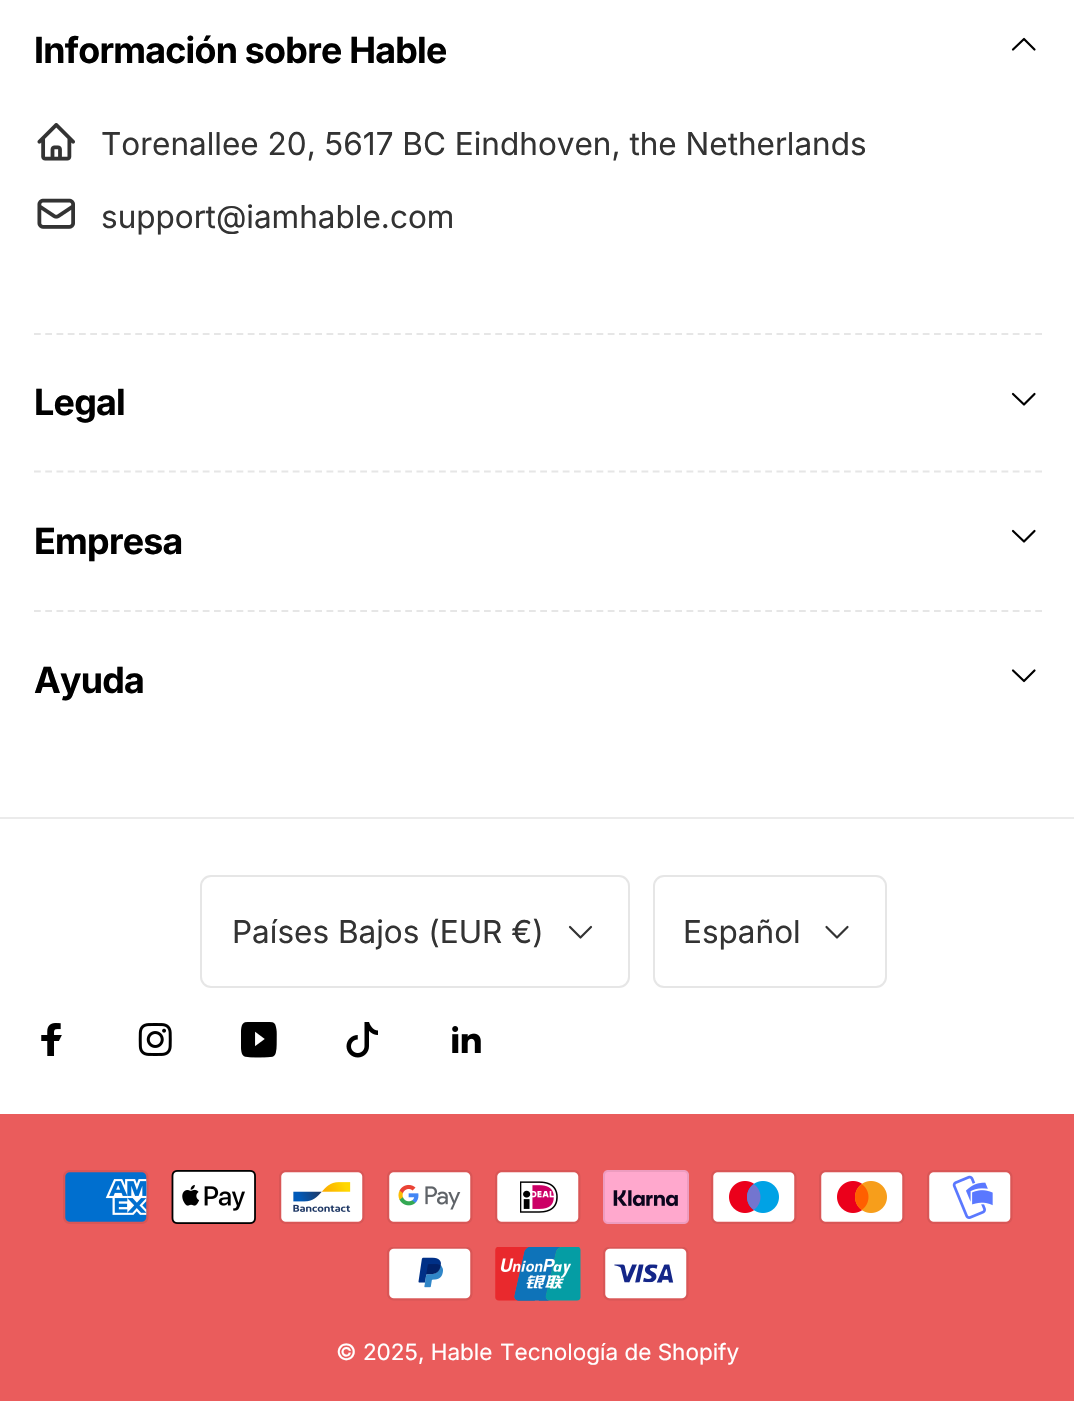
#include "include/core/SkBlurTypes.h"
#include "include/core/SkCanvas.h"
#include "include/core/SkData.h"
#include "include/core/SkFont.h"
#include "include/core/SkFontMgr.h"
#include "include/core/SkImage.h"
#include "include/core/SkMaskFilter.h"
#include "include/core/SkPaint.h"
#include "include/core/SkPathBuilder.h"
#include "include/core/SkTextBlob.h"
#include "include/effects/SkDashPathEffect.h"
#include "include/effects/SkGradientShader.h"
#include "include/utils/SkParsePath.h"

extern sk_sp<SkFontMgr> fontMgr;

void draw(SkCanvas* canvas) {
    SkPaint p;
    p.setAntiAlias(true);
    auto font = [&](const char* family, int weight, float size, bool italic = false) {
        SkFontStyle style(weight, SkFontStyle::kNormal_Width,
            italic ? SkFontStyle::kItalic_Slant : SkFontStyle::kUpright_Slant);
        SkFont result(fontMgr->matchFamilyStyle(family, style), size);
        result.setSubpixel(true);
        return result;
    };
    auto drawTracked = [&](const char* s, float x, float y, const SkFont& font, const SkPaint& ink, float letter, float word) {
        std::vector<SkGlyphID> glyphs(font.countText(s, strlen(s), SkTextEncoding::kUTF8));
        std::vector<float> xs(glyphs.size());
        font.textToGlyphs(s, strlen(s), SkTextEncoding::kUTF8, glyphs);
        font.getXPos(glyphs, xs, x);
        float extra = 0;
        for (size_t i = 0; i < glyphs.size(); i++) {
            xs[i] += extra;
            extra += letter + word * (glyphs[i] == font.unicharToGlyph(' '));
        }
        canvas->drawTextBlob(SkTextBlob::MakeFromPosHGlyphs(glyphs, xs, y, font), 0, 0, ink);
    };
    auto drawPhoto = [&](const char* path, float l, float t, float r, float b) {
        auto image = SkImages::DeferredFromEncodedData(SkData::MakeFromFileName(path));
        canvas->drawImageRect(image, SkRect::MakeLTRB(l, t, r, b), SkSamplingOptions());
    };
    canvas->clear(0xFFFFFFFF);
    p.setStyle(SkPaint::kStroke_Style);
    p.setStrokeWidth(2.2f);
    p.setColor(0xFFE6E6E6);
    p.setPathEffect(SkDashPathEffect::Make({{6.75f, 4.5f}}, 0));
    canvas->drawPath(SkPathBuilder().moveTo(34, 334).lineTo(1042, 334).detach(), p);
    p.setPathEffect(nullptr);
    auto font1 = font("Inter", 700, 36);
    p.setStyle(SkPaint::kFill_Style);
    p.setColor(0xFF000000);
    drawTracked("Información sobre Hable", 34, 63, font1, p, -0.75f, 0);
    p.setStyle(SkPaint::kStroke_Style);
    p.setStrokeCap(SkPaint::kRound_Cap);
    p.setStrokeJoin(SkPaint::kRound_Join);
    canvas->drawPath(SkPathBuilder().moveTo(1013, 49.5f).lineTo(1024, 39).lineTo(1034.5f, 49.5f).detach(), p);
    drawPhoto("media/1.png", 37, 123, 75, 161);
    auto font2 = font("Inter", 400, 31.5f);
    p.setStyle(SkPaint::kFill_Style);
    p.setColor(0xFF333333);
    canvas->drawString("Torenallee 20, 5617 BC Eindhoven, the Netherlands", 101, 155, font2, p);
    drawPhoto("media/2.png", 37, 198, 75, 229);
    canvas->drawString("support@iamhable.com", 101, 228, font2, p);
    p.setStyle(SkPaint::kStroke_Style);
    p.setStrokeCap(SkPaint::kButt_Cap);
    p.setStrokeJoin(SkPaint::kMiter_Join);
    p.setColor(0xFFE6E6E6);
    p.setPathEffect(SkDashPathEffect::Make({{6.75f, 4.5f}}, 0));
    canvas->drawPath(SkPathBuilder().moveTo(34, 471.5f).lineTo(1042, 471.5f).detach(), p);
    p.setPathEffect(nullptr);
    p.setStyle(SkPaint::kFill_Style);
    p.setColor(0xFF000000);
    drawTracked("Legal", 34, 415, font1, p, -0.75f, 0);
    p.setStyle(SkPaint::kStroke_Style);
    p.setStrokeCap(SkPaint::kRound_Cap);
    p.setStrokeJoin(SkPaint::kRound_Join);
    canvas->drawPath(SkPathBuilder().moveTo(1034.5f, 394).lineTo(1024, 404.5f).lineTo(1013, 394).detach(), p);
    p.setStrokeCap(SkPaint::kButt_Cap);
    p.setStrokeJoin(SkPaint::kMiter_Join);
    p.setColor(0xFFE6E6E6);
    p.setPathEffect(SkDashPathEffect::Make({{6.75f, 4.5f}}, 0));
    canvas->drawPath(SkPathBuilder().moveTo(34, 611).lineTo(1042, 611).detach(), p);
    p.setPathEffect(nullptr);
    p.setStyle(SkPaint::kFill_Style);
    p.setColor(0xFF000000);
    drawTracked("Empresa", 34, 554, font1, p, -0.75f, 0);
    p.setStyle(SkPaint::kStroke_Style);
    p.setStrokeCap(SkPaint::kRound_Cap);
    p.setStrokeJoin(SkPaint::kRound_Join);
    canvas->drawPath(SkPathBuilder().moveTo(1034.5f, 531).lineTo(1024, 541.5f).lineTo(1013, 531).detach(), p);
    p.setStyle(SkPaint::kFill_Style);
    drawTracked("Ayuda", 34, 693, font1, p, -0.75f, 0);
    p.setStyle(SkPaint::kStroke_Style);
    canvas->drawPath(SkPathBuilder().moveTo(1034.5f, 670.5f).lineTo(1024, 681).lineTo(1013, 670.5f).detach(), p);
    p.setStyle(SkPaint::kFill_Style);
    p.setColor(0xFFEBEBEB);
    canvas->drawRect(SkRect::MakeLTRB(0, 817, 1074, 819), p);
    p.setStyle(SkPaint::kStroke_Style);
    p.setStrokeWidth(2);
    p.setStrokeCap(SkPaint::kButt_Cap);
    p.setStrokeJoin(SkPaint::kMiter_Join);
    p.setColor(0xFFE6E6E6);
    canvas->drawRoundRect(SkRect::MakeLTRB(201, 876, 629, 987), 10, 10, p);
    p.setStyle(SkPaint::kFill_Style);
    p.setColor(0xFF333333);
    canvas->drawString("Países Bajos (EUR €)", 232, 943, font2, p);
    p.setStyle(SkPaint::kStroke_Style);
    p.setStrokeWidth(2.2f);
    p.setStrokeCap(SkPaint::kRound_Cap);
    p.setStrokeJoin(SkPaint::kRound_Join);
    canvas->drawPath(SkPathBuilder().moveTo(591, 927).lineTo(580.5f, 937.5f).lineTo(570, 927).detach(), p);
    p.setStrokeWidth(2);
    p.setStrokeCap(SkPaint::kButt_Cap);
    p.setStrokeJoin(SkPaint::kMiter_Join);
    p.setColor(0xFFE6E6E6);
    canvas->drawRoundRect(SkRect::MakeLTRB(654, 876, 886, 987), 10, 10, p);
    p.setStyle(SkPaint::kFill_Style);
    p.setColor(0xFF333333);
    canvas->drawString("Español", 683, 943, font2, p);
    p.setStyle(SkPaint::kStroke_Style);
    p.setStrokeWidth(2.2f);
    p.setStrokeCap(SkPaint::kRound_Cap);
    p.setStrokeJoin(SkPaint::kRound_Join);
    canvas->drawPath(SkPathBuilder().moveTo(847.5f, 927).lineTo(837, 937.5f).lineTo(826.5f, 927).detach(), p);
    drawPhoto("media/3.png", 41, 1023, 62, 1056);
    drawPhoto("media/4.png", 138, 1023, 172, 1056);
    drawPhoto("media/5.png", 241, 1022, 277, 1058);
    drawPhoto("media/6.png", 346, 1022, 378, 1058);
    drawPhoto("media/7.png", 452, 1026, 481, 1053);
    p.setStyle(SkPaint::kFill_Style);
    p.setColor(0xFFEA5C5C);
    canvas->drawRect(SkRect::MakeLTRB(0, 1114, 1074, 1401), p);
    drawPhoto("media/8.png", 63, 1170, 149, 1224);
    drawPhoto("media/9.png", 171, 1170, 256, 1224);
    drawPhoto("media/10.png", 279, 1170, 365, 1224);
    drawPhoto("media/11.png", 387, 1170, 473, 1224);
    drawPhoto("media/12.png", 495, 1170, 581, 1224);
    drawPhoto("media/13.png", 603, 1170, 689, 1224);
    drawPhoto("media/14.png", 711, 1170, 797, 1224);
    drawPhoto("media/15.png", 819, 1170, 905, 1224);
    drawPhoto("media/16.png", 927, 1170, 1013, 1224);
    drawPhoto("media/17.png", 387, 1247, 473, 1301);
    drawPhoto("media/18.png", 495, 1247, 581, 1301);
    drawPhoto("media/19.png", 603, 1247, 689, 1301);
    auto font3 = font("Inter", 400, 22.5f);
    p.setColor(0xFFFFFFFF);
    canvas->drawString("© 2025, Hable", 336, 1360, font3, p);
    canvas->drawString("Tecnología de Shopify", 500, 1360, font3, p);
}
